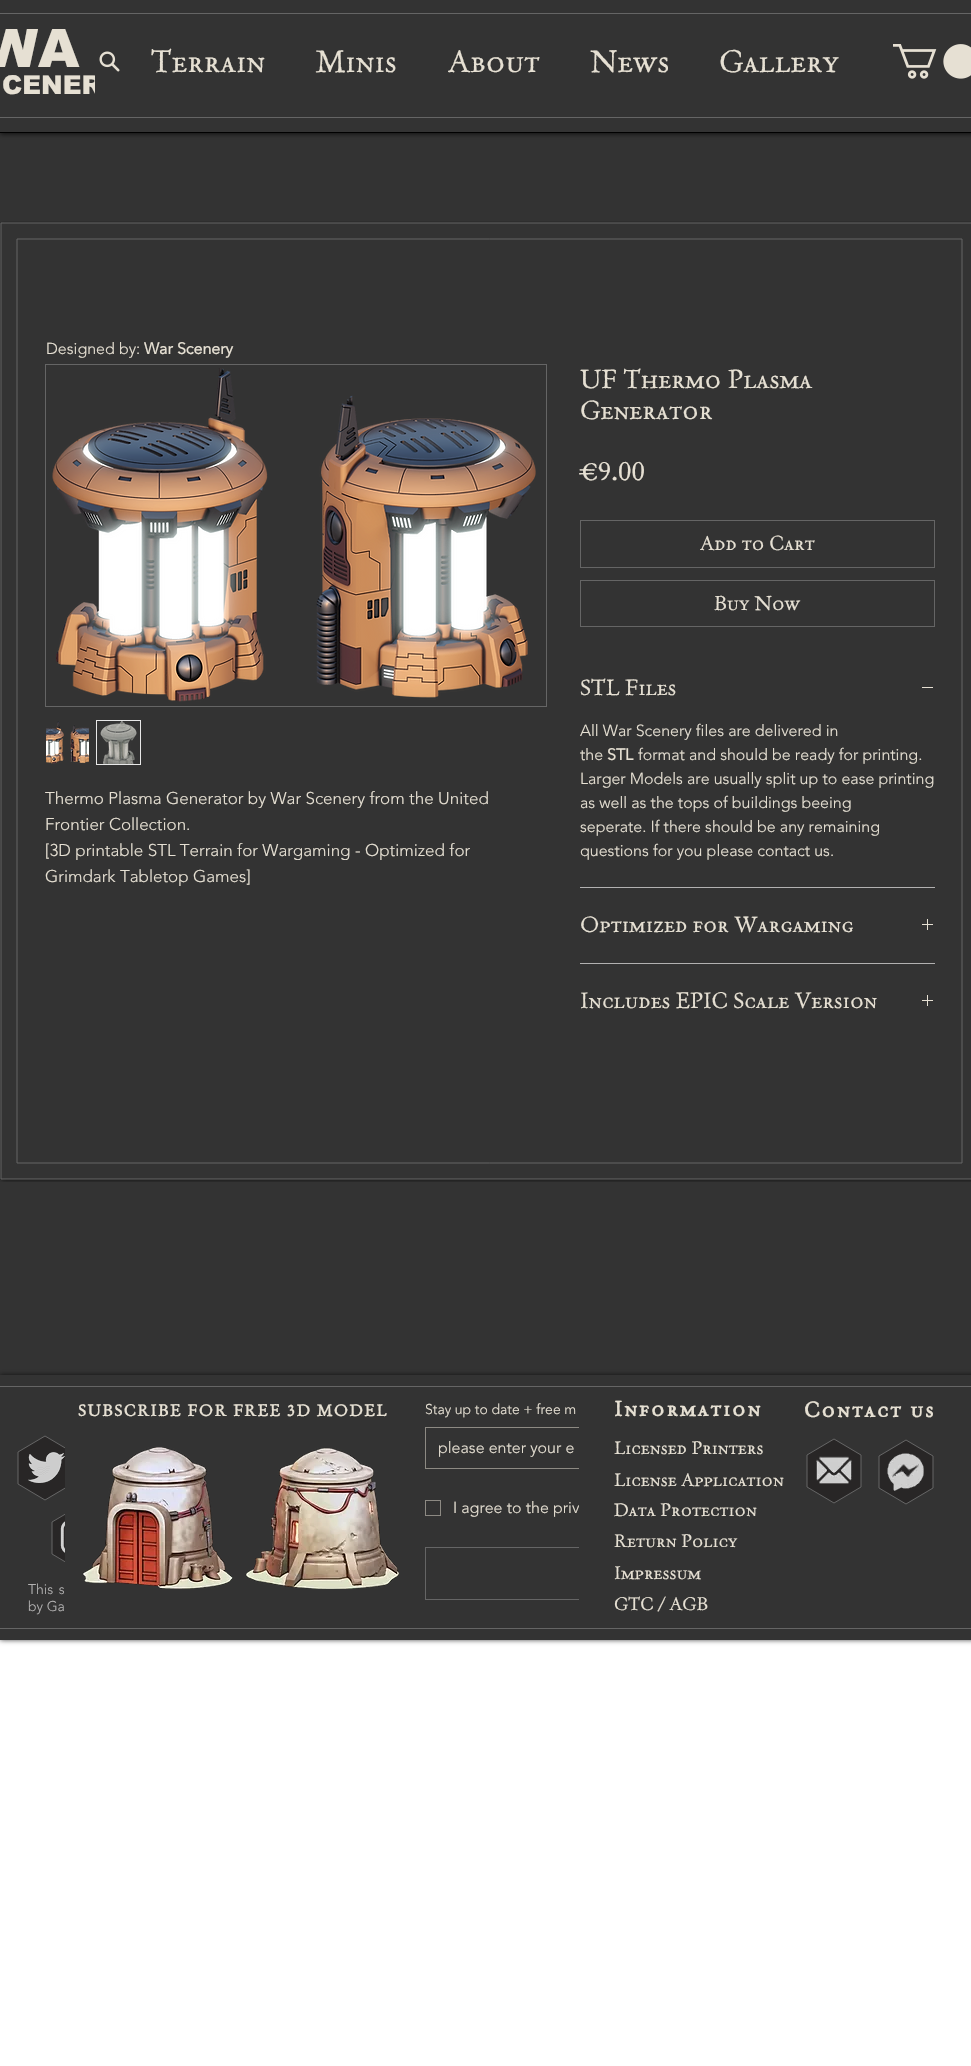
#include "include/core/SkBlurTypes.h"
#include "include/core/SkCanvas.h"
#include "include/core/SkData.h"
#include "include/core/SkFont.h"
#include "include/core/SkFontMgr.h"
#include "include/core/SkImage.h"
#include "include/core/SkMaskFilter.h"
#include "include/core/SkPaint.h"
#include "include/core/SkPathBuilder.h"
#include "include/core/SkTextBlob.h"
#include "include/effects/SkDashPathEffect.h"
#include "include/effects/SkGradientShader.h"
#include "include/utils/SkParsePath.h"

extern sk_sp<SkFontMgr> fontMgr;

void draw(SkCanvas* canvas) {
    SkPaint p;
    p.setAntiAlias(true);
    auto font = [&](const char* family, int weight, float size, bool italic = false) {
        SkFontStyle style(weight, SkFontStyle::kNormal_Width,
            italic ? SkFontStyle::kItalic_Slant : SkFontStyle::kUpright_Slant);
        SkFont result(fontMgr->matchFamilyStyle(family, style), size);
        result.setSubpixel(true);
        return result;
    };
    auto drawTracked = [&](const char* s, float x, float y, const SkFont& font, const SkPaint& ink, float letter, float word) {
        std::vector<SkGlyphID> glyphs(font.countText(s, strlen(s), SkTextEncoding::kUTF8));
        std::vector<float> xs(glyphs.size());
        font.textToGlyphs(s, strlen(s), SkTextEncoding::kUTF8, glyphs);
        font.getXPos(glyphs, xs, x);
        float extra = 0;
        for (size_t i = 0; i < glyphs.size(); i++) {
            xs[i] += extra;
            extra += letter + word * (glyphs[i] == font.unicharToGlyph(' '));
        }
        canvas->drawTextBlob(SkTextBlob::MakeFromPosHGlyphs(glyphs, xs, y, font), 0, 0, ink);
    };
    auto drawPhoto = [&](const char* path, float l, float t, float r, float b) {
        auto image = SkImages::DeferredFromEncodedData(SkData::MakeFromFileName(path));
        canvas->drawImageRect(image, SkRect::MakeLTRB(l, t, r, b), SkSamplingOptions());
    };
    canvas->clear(0xFFFFFFFF);
    p.setColor(0xFF333333);
    canvas->drawRect(SkRect::MakeLTRB(0, 133, 971, 1375), p);
    p.setColor(0xB3000000);
    p.setMaskFilter(SkMaskFilter::MakeBlur(kNormal_SkBlurStyle, 2.5f));
    canvas->drawRect(SkRect::MakeLTRB(0, 2, 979, 134), p);
    p.setMaskFilter(nullptr);
    p.setColor(0xFF333333);
    canvas->drawRect(SkRect::MakeLTRB(0, 0, 971, 132), p);
    p.setColor(0xFF656565);
    canvas->drawRect(SkRect::MakeLTRB(0, 13, 971, 14), p);
    auto font1 = font("arial", 900, 53);
    p.setColor(0xFFE6E0D3);
    canvas->drawString("WA", -15, 67, font1, p);
    auto font2 = font("arial", 900, 26);
    canvas->drawString("CENER", 2, 94, font2, p);
    drawPhoto("media/1.png", 99, 51, 120, 72);
    auto font3 = font("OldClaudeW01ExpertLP", 400, 31);
    {
        const struct { const char* s; float x, y; } items[] = {
            {"Terrain", 151, 72},
            {"Minis", 316, 72},
            {"About", 448, 72},
            {"News", 590, 72},
            {"Gallery", 719, 72},
        };
        for (auto [s, x, y] : items) {
            canvas->drawString(s, x, y, font3, p);
        }
    }
    p.setColor(0xFF333333);
    canvas->drawRect(SkRect::MakeLTRB(95, 75, 103, 94), p);
    drawPhoto("media/2.png", 893, 44, 971, 79);
    p.setColor(0xFF656565);
    canvas->drawRect(SkRect::MakeLTRB(0, 117, 971, 118), p);
    p.setColor(0xFF000000);
    canvas->drawRect(SkRect::MakeLTRB(0, 132, 971, 133), p);
    drawPhoto("media/3.png", 0, 221, 971, 1182);
    p.setStyle(SkPaint::kStroke_Style);
    p.setStrokeWidth(1);
    p.setColor(0xFF656565);
    canvas->drawPath(SkPathBuilder().moveTo(962, 239).lineTo(962, 1163).lineTo(17, 1163).lineTo(17, 239).close().detach(), p);
    auto font4 = font("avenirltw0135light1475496", 300, 16);
    p.setStyle(SkPaint::kFill_Style);
    p.setColor(0xFFE6E0D3);
    canvas->drawString("Designed by:", 46, 354, font4, p);
    auto font5 = font("avenirltw0135light1475496", 700, 16);
    canvas->drawString("War Scenery", 144, 354, font5, p);
    p.setStyle(SkPaint::kStroke_Style);
    p.setColor(0xFF656565);
    canvas->drawRect(SkRect::MakeLTRB(45.5f, 364.5f, 546.5f, 706.5f), p);
    drawPhoto("media/4.png", 52, 368, 536, 702);
    drawPhoto("media/5.png", 46, 721, 89, 764);
    p.setColor(0xFFE8E8E8);
    canvas->drawRect(SkRect::MakeLTRB(96.5f, 720.5f, 140.5f, 764.5f), p);
    drawPhoto("media/6.png", 100, 721, 137, 764);
    auto font6 = font("avenirltw0135light1475496", 300, 17);
    p.setStyle(SkPaint::kFill_Style);
    p.setColor(0xFFE6E0D3);
    {
        const struct { const char* s; float x, y; } items[] = {
            {"Thermo Plasma Generator by War Scenery from the United", 45, 804},
            {"Frontier Collection.", 45, 830},
            {"[3D printable STL Terrain for Wargaming - Optimized for", 45, 856},
            {"Grimdark Tabletop Games]", 45, 882},
        };
        for (auto [s, x, y] : items) {
            canvas->drawString(s, x, y, font6, p);
        }
    }
    auto font7 = font("OldClaudeW01ExpertLP", 400, 26);
    canvas->drawString("UF Thermo Plasma", 580, 388, font7, p);
    canvas->drawString("Generator", 580, 419, font7, p);
    auto font8 = font("OldClaudeW01ExpertLP", 400, 27);
    canvas->drawString("€9.00", 580, 480, font8, p);
    p.setStyle(SkPaint::kStroke_Style);
    p.setColor(0xFF656565);
    canvas->drawRect(SkRect::MakeLTRB(580.5f, 520.5f, 934.5f, 567.5f), p);
    auto font9 = font("OldClaudeW01ExpertLP", 400, 20);
    p.setStyle(SkPaint::kFill_Style);
    p.setColor(0xFFE6E0D3);
    canvas->drawString("Add to Cart", 700, 550, font9, p);
    p.setStyle(SkPaint::kStroke_Style);
    p.setColor(0xFF656565);
    canvas->drawRect(SkRect::MakeLTRB(580.5f, 580.5f, 934.5f, 626.5f), p);
    p.setStyle(SkPaint::kFill_Style);
    p.setColor(0xFFE6E0D3);
    canvas->drawString("Buy Now", 714, 610, font9, p);
    p.setColor(0xFFB2B1B1);
    canvas->drawRect(SkRect::MakeLTRB(580, 887, 935, 888), p);
    auto font10 = font("OldClaudeW01ExpertLP", 400, 22);
    p.setColor(0xFFE6E0D3);
    canvas->drawString("STL Files", 580, 695, font10, p);
    canvas->drawRect(SkRect::MakeLTRB(922, 687, 933, 688), p);
    canvas->drawString("All War Scenery files are delivered in", 580, 736, font4, p);
    canvas->drawString("the", 580, 760, font4, p);
    canvas->drawString("STL", 607, 760, font5, p);
    {
        const struct { const char* s; float x, y; } items[] = {
            {"format and should be ready for printing.", 638, 760},
            {"Larger Models are usually split up to ease printing", 580, 784},
            {"as well as the tops of buildings beeing", 580, 808},
            {"seperate. If there should be any remaining", 580, 832},
            {"questions for you please contact us.", 580, 856},
        };
        for (auto [s, x, y] : items) {
            canvas->drawString(s, x, y, font4, p);
        }
    }
    p.setColor(0xFFB2B1B1);
    canvas->drawRect(SkRect::MakeLTRB(580, 963, 935, 964), p);
    p.setColor(0xFFE6E0D3);
    canvas->drawString("Optimized for Wargaming", 580, 932, font10, p);
    drawPhoto("media/7.png", 922, 919, 933, 930);
    canvas->drawString("Includes EPIC Scale Version", 580, 1008, font10, p);
    drawPhoto("media/7.png", 922, 995, 933, 1006);
    p.setColor(0xB3000000);
    p.setMaskFilter(SkMaskFilter::MakeBlur(kNormal_SkBlurStyle, 2.5f));
    canvas->drawRect(SkRect::MakeLTRB(0, 1375, 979, 1640), p);
    p.setMaskFilter(nullptr);
    {
        const struct { float l, t, r, b; SkColor color; } items[] = {
            {0, 1375, 971, 1640, 0xFF333333},
            {0, 1386, 971, 1387, 0xFF656565},
            {0, 1628, 971, 1629, 0xFF656565},
        };
        for (auto [l, t, r, b, color] : items) {
            p.setColor(color);
            canvas->drawRect(SkRect::MakeLTRB(l, t, r, b), p);
        }
    }
    auto font11 = font("OldClaudeW01ExpertLP", 700, 16);
    p.setColor(0xFFE6E0D3);
    drawTracked("SUBSCRIBE FOR FREE 3D MODEL", 78, 1416, font11, p, 1.6f, 0);
    auto font12 = font("avenirltw0135light1475496", 300, 14);
    canvas->drawString("Stay up to date + free m", 425, 1414, font12, p);
    p.setStyle(SkPaint::kStroke_Style);
    p.setColor(0xFF8D8A83);
    canvas->drawRect(SkRect::MakeLTRB(425.5f, 1427.5f, 887.5f, 1468.5f), p);
    p.setStyle(SkPaint::kFill_Style);
    p.setColor(0xFFE6E0D3);
    canvas->drawString("please enter your e", 438, 1453, font4, p);
    p.setStyle(SkPaint::kStroke_Style);
    p.setColor(0xFF8D8A83);
    canvas->drawRect(SkRect::MakeLTRB(425.5f, 1500.5f, 440.5f, 1515.5f), p);
    p.setStyle(SkPaint::kFill_Style);
    p.setColor(0xFFE6E0D3);
    canvas->drawString("I agree to the priv", 453, 1513, font4, p);
    p.setStyle(SkPaint::kStroke_Style);
    p.setColor(0xFF656565);
    canvas->drawRect(SkRect::MakeLTRB(425.5f, 1547.5f, 887.5f, 1599.5f), p);
    p.setStyle(SkPaint::kFill_Style);
    p.setColor(0xFF282626);
    canvas->drawPath(SkPathBuilder().moveTo(72, 1484).lineTo(45, 1500).lineTo(18, 1484).lineTo(18, 1452).lineTo(45, 1436).lineTo(72, 1452).close().detach(), p);
    p.setStyle(SkPaint::kStroke_Style);
    p.setColor(0xFF656565);
    canvas->drawPath(SkPathBuilder().moveTo(72, 1484).lineTo(45, 1500).lineTo(18, 1484).lineTo(18, 1452).lineTo(45, 1436).lineTo(72, 1452).close().detach(), p);
    p.setStyle(SkPaint::kFill_Style);
    p.setColor(0xFF282626);
    canvas->drawPath(SkPathBuilder().moveTo(106, 1554).lineTo(79, 1570).lineTo(52, 1554).lineTo(52, 1522).lineTo(79, 1506).lineTo(106, 1522).close().detach(), p);
    p.setStyle(SkPaint::kStroke_Style);
    p.setColor(0xFF656565);
    canvas->drawPath(SkPathBuilder().moveTo(106, 1554).lineTo(79, 1570).lineTo(52, 1554).lineTo(52, 1522).lineTo(79, 1506).lineTo(106, 1522).close().detach(), p);
    p.setStyle(SkPaint::kFill_Style);
    p.setColor(0xFF333333);
    canvas->drawRect(SkRect::MakeLTRB(65, 1447, 107, 1571), p);
    drawPhoto("media/8.png", 82, 1447, 399, 1589);
    auto font13 = font("OldClaudeW01ExpertLP", 700, 21);
    p.setColor(0xFFE6E0D3);
    drawTracked("Information", 614, 1416, font13, p, 2.1f, 0);
    p.setColor(0xFF333333);
    canvas->drawRect(SkRect::MakeLTRB(579, 1427, 888, 1600), p);
    auto font14 = font("OldClaudeW01ExpertLP", 400, 18);
    p.setColor(0xFFE6E0D3);
    {
        const struct { const char* s; float x, y; } items[] = {
            {"Licensed Printers", 614, 1454},
            {"License Application", 614, 1486},
            {"Data Protection", 614, 1516},
            {"Return Policy", 614, 1547},
            {"Impressum", 614, 1579},
            {"GTC / AGB", 614, 1610},
        };
        for (auto [s, x, y] : items) {
            canvas->drawString(s, x, y, font14, p);
        }
    }
    drawTracked("Contact us", 804, 1417, font13, p, 2.1f, 0);
    p.setColor(0xFF282626);
    canvas->drawPath(SkPathBuilder().moveTo(861, 1487).lineTo(834, 1503).lineTo(807, 1487).lineTo(807, 1455).lineTo(834, 1439).lineTo(861, 1455).close().detach(), p);
    p.setStyle(SkPaint::kStroke_Style);
    p.setColor(0xFF656565);
    canvas->drawPath(SkPathBuilder().moveTo(861, 1487).lineTo(834, 1503).lineTo(807, 1487).lineTo(807, 1455).lineTo(834, 1439).lineTo(861, 1455).close().detach(), p);
    drawPhoto("media/9.png", 816, 1456, 852, 1484);
    p.setStyle(SkPaint::kFill_Style);
    p.setColor(0xFF282626);
    canvas->drawPath(SkPathBuilder().moveTo(933, 1488).lineTo(906, 1504).lineTo(879, 1488).lineTo(879, 1456).lineTo(906, 1440).lineTo(933, 1456).close().detach(), p);
    p.setStyle(SkPaint::kStroke_Style);
    p.setColor(0xFF656565);
    canvas->drawPath(SkPathBuilder().moveTo(933, 1488).lineTo(906, 1504).lineTo(879, 1488).lineTo(879, 1456).lineTo(906, 1440).lineTo(933, 1456).close().detach(), p);
    drawPhoto("media/10.png", 887, 1453, 924, 1492);
    drawPhoto("media/11.png", 28, 1452, 65, 1483);
    drawPhoto("media/12.png", 60, 1521, 65, 1553);
    p.setStyle(SkPaint::kFill_Style);
    p.setColor(0xFFB2B1B1);
    drawTracked("This s", 28, 1594, font12, p, 0, 2);
    canvas->drawString("by Ga", 28, 1611, font12, p);
}
